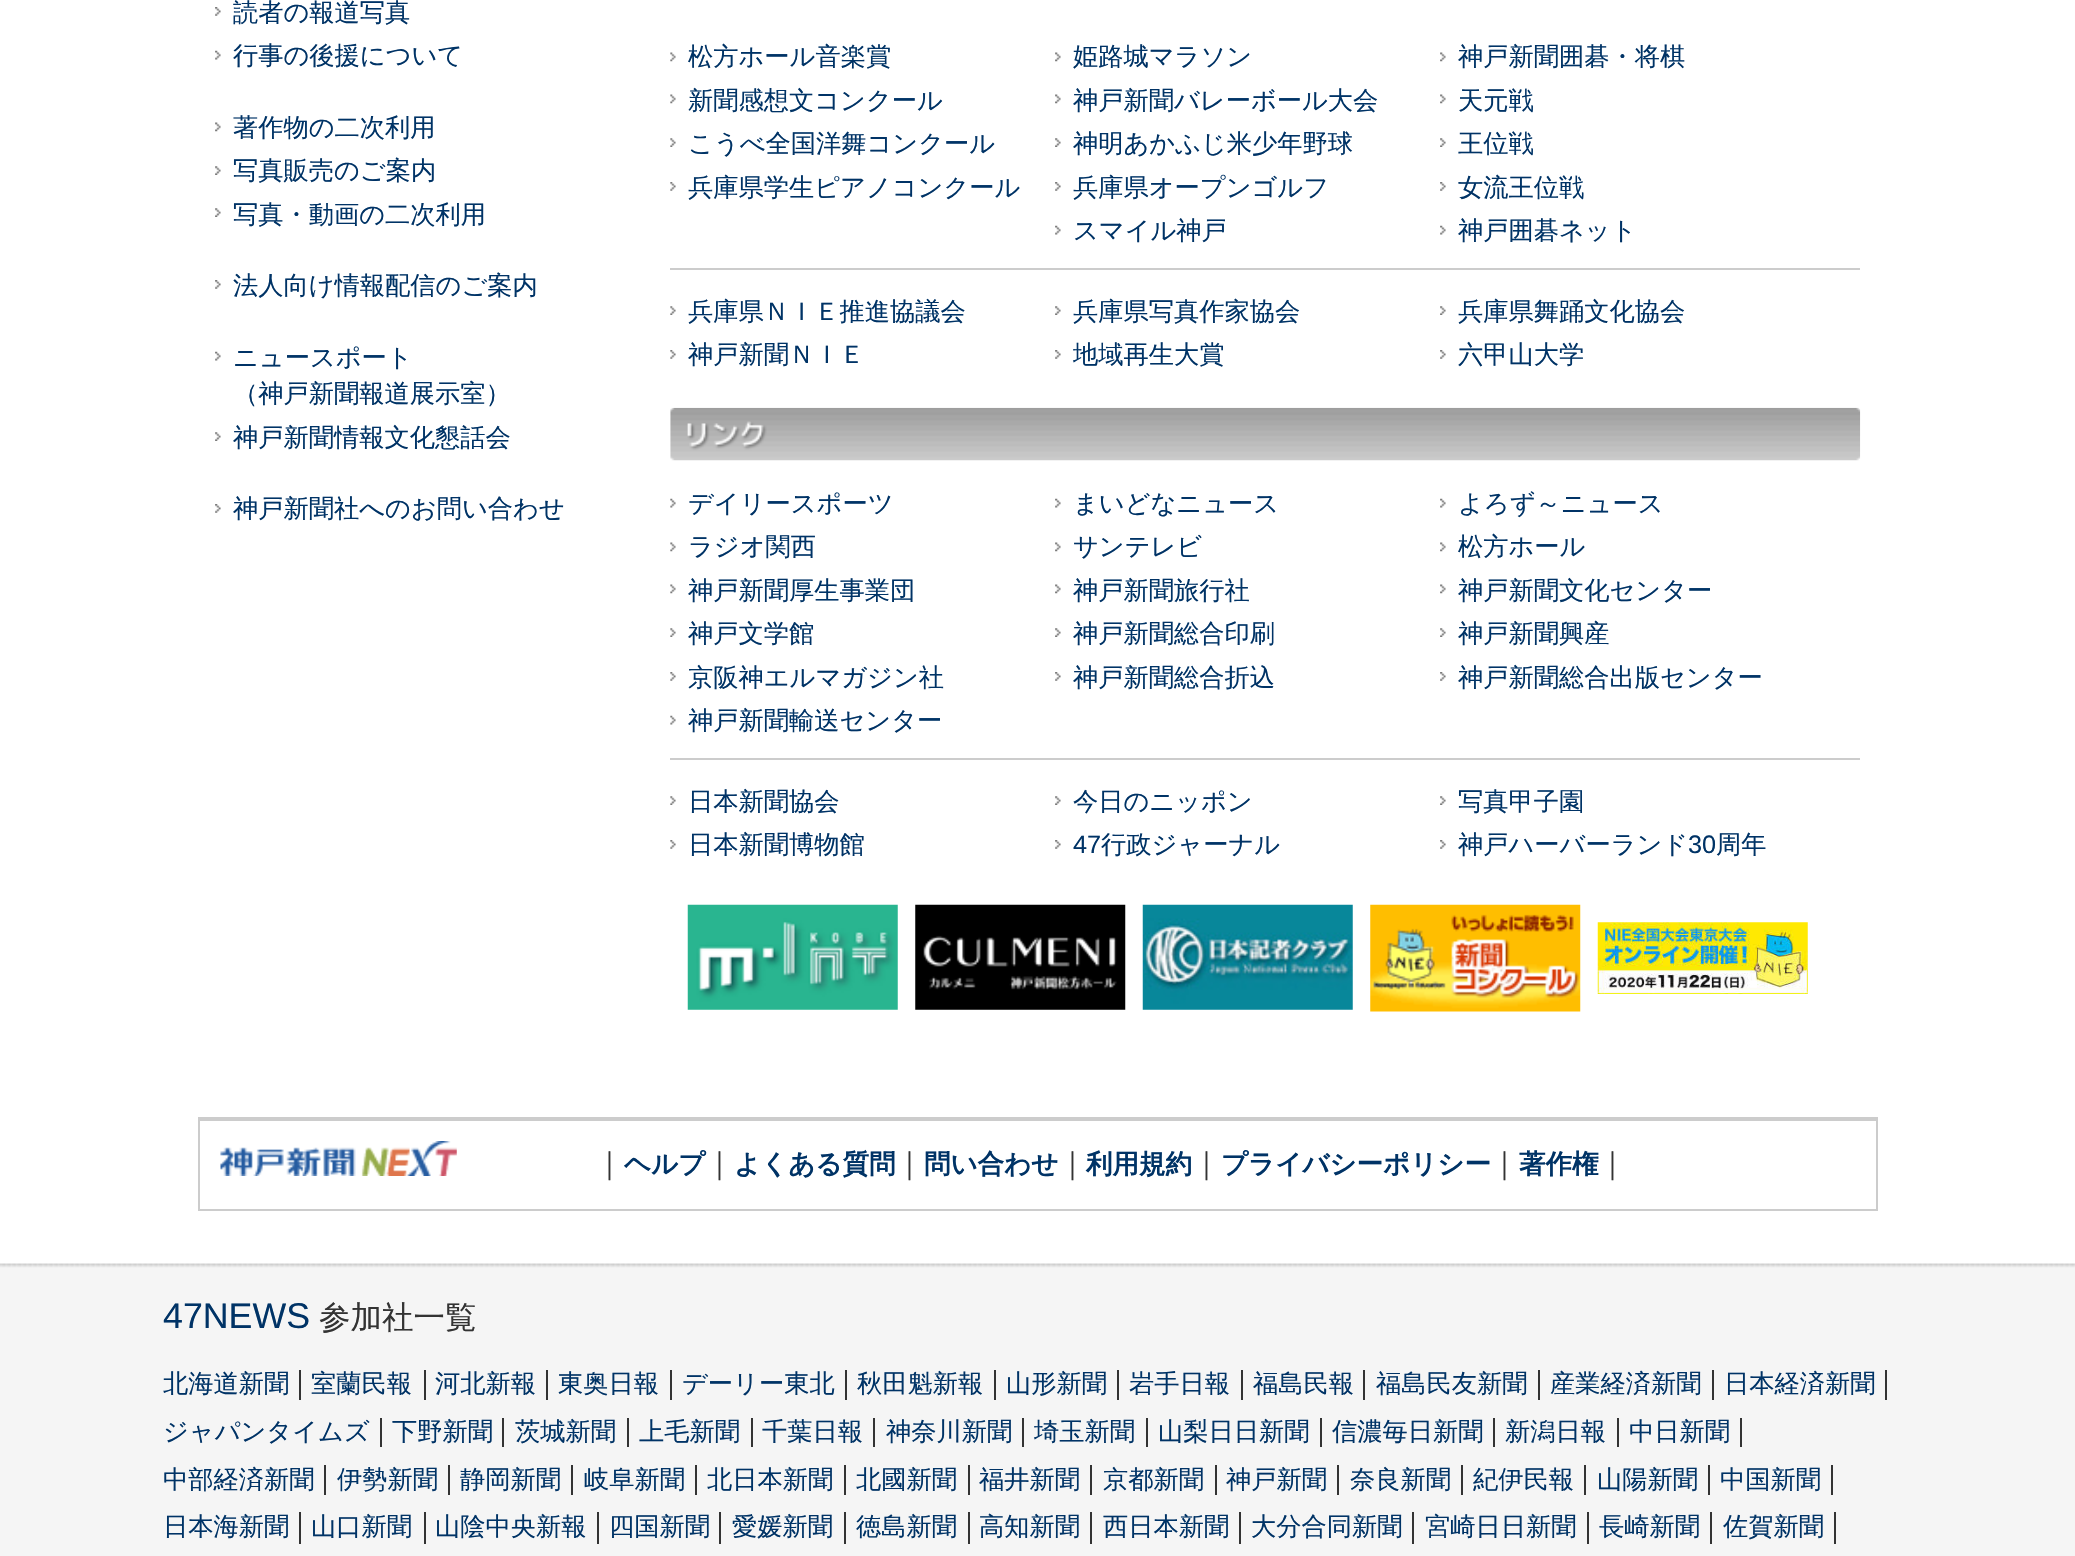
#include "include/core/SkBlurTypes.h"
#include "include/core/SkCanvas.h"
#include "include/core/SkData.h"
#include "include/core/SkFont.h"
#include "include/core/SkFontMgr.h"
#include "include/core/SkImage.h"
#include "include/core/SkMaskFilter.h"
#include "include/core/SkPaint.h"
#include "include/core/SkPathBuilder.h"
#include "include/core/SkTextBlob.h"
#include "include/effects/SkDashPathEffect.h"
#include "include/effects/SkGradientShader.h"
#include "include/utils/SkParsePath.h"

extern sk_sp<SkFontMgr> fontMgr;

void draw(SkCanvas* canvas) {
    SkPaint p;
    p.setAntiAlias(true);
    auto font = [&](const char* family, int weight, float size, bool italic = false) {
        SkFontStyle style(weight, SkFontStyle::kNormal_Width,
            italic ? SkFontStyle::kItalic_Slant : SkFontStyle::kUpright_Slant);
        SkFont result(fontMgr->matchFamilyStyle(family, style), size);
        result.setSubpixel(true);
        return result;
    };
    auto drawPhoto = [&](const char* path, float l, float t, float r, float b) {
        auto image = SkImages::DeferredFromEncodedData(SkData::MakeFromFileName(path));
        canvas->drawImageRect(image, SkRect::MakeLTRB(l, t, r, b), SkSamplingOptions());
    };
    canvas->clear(0xFFFFFFFF);
    drawPhoto("media/1.png", 215, 7, 221, 16);
    auto font1 = font("WenQuanYi Zen Hei", 500, 25.25f);
    p.setColor(0xFF003366);
    canvas->drawString("読者の報道写真", 233, 21, font1, p);
    drawPhoto("media/2.png", 215, 50, 221, 60);
    canvas->drawString("行事の後援について", 233, 64, font1, p);
    drawPhoto("media/3.png", 215, 122, 221, 132);
    canvas->drawString("著作物の二次利用", 233, 136, font1, p);
    drawPhoto("media/4.png", 215, 166, 221, 175);
    canvas->drawString("写真販売のご案内", 233, 179, font1, p);
    drawPhoto("media/4.png", 215, 208, 221, 217);
    canvas->drawString("写真・動画の二次利用", 233, 223, font1, p);
    drawPhoto("media/1.png", 215, 280, 221, 289);
    canvas->drawString("法人向け情報配信のご案内", 233, 294, font1, p);
    drawPhoto("media/2.png", 215, 351, 221, 361);
    canvas->drawString("ニュースポート", 233, 366, font1, p);
    canvas->drawString("（神戸新聞報道展示室）", 233, 402, font1, p);
    drawPhoto("media/4.png", 215, 432, 221, 441);
    canvas->drawString("神戸新聞情報文化懇話会", 233, 446, font1, p);
    drawPhoto("media/1.png", 215, 504, 221, 513);
    canvas->drawString("神戸新聞社へのお問い合わせ", 233, 517, font1, p);
    drawPhoto("media/5.png", 670, 52, 676, 62);
    canvas->drawString("松方ホール音楽賞", 688, 65, font1, p);
    drawPhoto("media/5.png", 670, 94, 676, 104);
    canvas->drawString("新聞感想文コンクール", 688, 109, font1, p);
    drawPhoto("media/6.png", 670, 138, 676, 147);
    canvas->drawString("こうべ全国洋舞コンクール", 688, 152, font1, p);
    drawPhoto("media/7.png", 670, 182, 676, 191);
    canvas->drawString("兵庫県学生ピアノコンクール", 688, 196, font1, p);
    drawPhoto("media/3.png", 1055, 52, 1061, 62);
    canvas->drawString("姫路城マラソン", 1073, 65, font1, p);
    drawPhoto("media/3.png", 1055, 94, 1061, 104);
    canvas->drawString("神戸新聞バレーボール大会", 1073, 109, font1, p);
    drawPhoto("media/4.png", 1055, 138, 1061, 147);
    canvas->drawString("神明あかふじ米少年野球", 1073, 152, font1, p);
    drawPhoto("media/1.png", 1055, 182, 1061, 191);
    canvas->drawString("兵庫県オープンゴルフ", 1073, 196, font1, p);
    drawPhoto("media/2.png", 1055, 225, 1061, 235);
    canvas->drawString("スマイル神戸", 1073, 239, font1, p);
    drawPhoto("media/3.png", 1440, 52, 1446, 62);
    canvas->drawString("神戸新聞囲碁・将棋", 1458, 65, font1, p);
    drawPhoto("media/3.png", 1440, 94, 1446, 104);
    canvas->drawString("天元戦", 1458, 109, font1, p);
    drawPhoto("media/4.png", 1440, 138, 1446, 147);
    canvas->drawString("王位戦", 1458, 152, font1, p);
    drawPhoto("media/1.png", 1440, 182, 1446, 191);
    canvas->drawString("女流王位戦", 1458, 196, font1, p);
    drawPhoto("media/2.png", 1440, 225, 1446, 235);
    canvas->drawString("神戸囲碁ネット", 1458, 239, font1, p);
    p.setColor(0xFFCCCCCC);
    canvas->drawRect(SkRect::MakeLTRB(670, 268, 1860, 270), p);
    drawPhoto("media/6.png", 670, 306, 676, 315);
    p.setColor(0xFF003366);
    canvas->drawString("兵庫県ＮＩＥ推進協議会", 688, 320, font1, p);
    drawPhoto("media/7.png", 670, 350, 676, 359);
    canvas->drawString("神戸新聞ＮＩＥ", 688, 363, font1, p);
    drawPhoto("media/4.png", 1055, 306, 1061, 315);
    canvas->drawString("兵庫県写真作家協会", 1073, 320, font1, p);
    drawPhoto("media/1.png", 1055, 350, 1061, 359);
    canvas->drawString("地域再生大賞", 1073, 363, font1, p);
    drawPhoto("media/4.png", 1440, 306, 1446, 315);
    canvas->drawString("兵庫県舞踊文化協会", 1458, 320, font1, p);
    drawPhoto("media/1.png", 1440, 350, 1446, 359);
    canvas->drawString("六甲山大学", 1458, 363, font1, p);
    drawPhoto("media/8.png", 670, 407, 1861, 461);
    drawPhoto("media/9.png", 670, 498, 676, 508);
    canvas->drawString("デイリースポーツ", 688, 512, font1, p);
    drawPhoto("media/5.png", 670, 542, 676, 552);
    canvas->drawString("ラジオ関西", 688, 555, font1, p);
    drawPhoto("media/5.png", 670, 584, 676, 594);
    canvas->drawString("神戸新聞厚生事業団", 688, 599, font1, p);
    drawPhoto("media/6.png", 670, 628, 676, 637);
    canvas->drawString("神戸文学館", 688, 642, font1, p);
    drawPhoto("media/7.png", 670, 672, 676, 681);
    canvas->drawString("京阪神エルマガジン社", 688, 686, font1, p);
    drawPhoto("media/9.png", 670, 715, 676, 725);
    canvas->drawString("神戸新聞輸送センター", 688, 729, font1, p);
    drawPhoto("media/2.png", 1055, 498, 1061, 508);
    canvas->drawString("まいどなニュース", 1073, 512, font1, p);
    drawPhoto("media/3.png", 1055, 542, 1061, 552);
    canvas->drawString("サンテレビ", 1073, 555, font1, p);
    drawPhoto("media/3.png", 1055, 584, 1061, 594);
    canvas->drawString("神戸新聞旅行社", 1073, 599, font1, p);
    drawPhoto("media/4.png", 1055, 628, 1061, 637);
    canvas->drawString("神戸新聞総合印刷", 1073, 642, font1, p);
    drawPhoto("media/1.png", 1055, 672, 1061, 681);
    canvas->drawString("神戸新聞総合折込", 1073, 686, font1, p);
    drawPhoto("media/2.png", 1440, 498, 1446, 508);
    canvas->drawString("よろず～ニュース", 1458, 512, font1, p);
    drawPhoto("media/3.png", 1440, 542, 1446, 552);
    canvas->drawString("松方ホール", 1458, 555, font1, p);
    drawPhoto("media/3.png", 1440, 584, 1446, 594);
    canvas->drawString("神戸新聞文化センター", 1458, 599, font1, p);
    drawPhoto("media/4.png", 1440, 628, 1446, 637);
    canvas->drawString("神戸新聞興産", 1458, 642, font1, p);
    drawPhoto("media/1.png", 1440, 672, 1446, 681);
    canvas->drawString("神戸新聞総合出版センター", 1458, 686, font1, p);
    p.setColor(0xFFCCCCCC);
    canvas->drawRect(SkRect::MakeLTRB(670, 758, 1860, 760), p);
    drawPhoto("media/6.png", 670, 796, 676, 805);
    p.setColor(0xFF003366);
    canvas->drawString("日本新聞協会", 688, 810, font1, p);
    drawPhoto("media/7.png", 670, 840, 676, 849);
    canvas->drawString("日本新聞博物館", 688, 853, font1, p);
    drawPhoto("media/4.png", 1055, 796, 1061, 805);
    canvas->drawString("今日のニッポン", 1073, 810, font1, p);
    drawPhoto("media/1.png", 1055, 840, 1061, 849);
    auto font2 = font("Liberation Sans", 400, 25.25f);
    canvas->drawString("47", 1073, 853, font2, p);
    canvas->drawString("行政ジャーナル", 1101, 853, font1, p);
    drawPhoto("media/4.png", 1440, 796, 1446, 805);
    canvas->drawString("写真甲子園", 1458, 810, font1, p);
    drawPhoto("media/1.png", 1440, 840, 1446, 849);
    canvas->drawString("神戸ハーバーランド", 1458, 853, font1, p);
    canvas->drawString("30", 1688, 853, font2, p);
    canvas->drawString("周年", 1716, 853, font1, p);
    drawPhoto("media/10.png", 687, 904, 898, 1010);
    drawPhoto("media/11.png", 915, 904, 1126, 1010);
    drawPhoto("media/12.png", 1142, 904, 1353, 1010);
    drawPhoto("media/13.png", 1370, 904, 1581, 1012);
    drawPhoto("media/14.png", 1597, 922, 1808, 994);
    {
        const struct { float l, t, r, b; SkColor color; } items[] = {
            {198, 1117, 1878, 1121, 0xFFCCCCCC},
            {1876, 1117, 1878, 1211, 0xFFCCCCCC},
            {198, 1209, 1878, 1211, 0xFFCCCCCC},
            {198, 1117, 200, 1211, 0xFFCCCCCC},
        };
        for (auto [l, t, r, b, color] : items) {
            p.setColor(color);
            canvas->drawRect(SkRect::MakeLTRB(l, t, r, b), p);
        }
    }
    drawPhoto("media/15.png", 220, 1141, 457, 1176);
    auto font3 = font("WenQuanYi Zen Hei", 500, 29);
    p.setColor(0xFF333333);
    canvas->drawString("｜", 595, 1173, font3, p);
    auto font4 = font("WenQuanYi Zen Hei", 700, 26.5f);
    p.setColor(0xFF003366);
    canvas->drawString("ヘルプ", 624, 1173, font4, p);
    p.setColor(0xFF333333);
    canvas->drawString("｜", 705, 1173, font3, p);
    p.setColor(0xFF003366);
    canvas->drawString("よくある質問", 734, 1173, font4, p);
    p.setColor(0xFF333333);
    canvas->drawString("｜", 895, 1173, font3, p);
    p.setColor(0xFF003366);
    canvas->drawString("問い合わせ", 924, 1173, font4, p);
    p.setColor(0xFF333333);
    canvas->drawString("｜", 1058, 1173, font3, p);
    p.setColor(0xFF003366);
    canvas->drawString("利用規約", 1086, 1173, font4, p);
    p.setColor(0xFF333333);
    canvas->drawString("｜", 1192, 1173, font3, p);
    p.setColor(0xFF003366);
    canvas->drawString("プライバシーポリシー", 1221, 1173, font4, p);
    p.setColor(0xFF333333);
    canvas->drawString("｜", 1490, 1173, font3, p);
    p.setColor(0xFF003366);
    canvas->drawString("著作権", 1519, 1173, font4, p);
    p.setColor(0xFF333333);
    canvas->drawString("｜", 1598, 1173, font3, p);
    drawPhoto("media/16.png", 0, 1263, 2075, 1556);
    auto font5 = font("Liberation Sans", 400, 35.75f);
    p.setColor(0xFF003366);
    canvas->drawString("47NEWS", 163, 1328, font5, p);
    auto font6 = font("WenQuanYi Zen Hei", 500, 31.5f);
    p.setColor(0xFF333333);
    canvas->drawString("参加社一覧", 319, 1328, font6, p);
    canvas->drawRect(SkRect::MakeLTRB(299, 1370, 301, 1400), p);
    p.setColor(0xFF003366);
    canvas->drawString("北海道新聞", 163, 1392, font1, p);
    p.setColor(0xFF333333);
    canvas->drawRect(SkRect::MakeLTRB(424, 1370, 426, 1400), p);
    p.setColor(0xFF003366);
    canvas->drawString("室蘭民報", 311, 1392, font1, p);
    p.setColor(0xFF333333);
    canvas->drawRect(SkRect::MakeLTRB(546, 1370, 548, 1400), p);
    p.setColor(0xFF003366);
    canvas->drawString("河北新報", 435, 1392, font1, p);
    p.setColor(0xFF333333);
    canvas->drawRect(SkRect::MakeLTRB(670, 1370, 672, 1400), p);
    p.setColor(0xFF003366);
    canvas->drawString("東奥日報", 558, 1392, font1, p);
    p.setColor(0xFF333333);
    canvas->drawRect(SkRect::MakeLTRB(845, 1370, 847, 1400), p);
    p.setColor(0xFF003366);
    canvas->drawString("デーリー東北", 682, 1392, font1, p);
    p.setColor(0xFF333333);
    canvas->drawRect(SkRect::MakeLTRB(994, 1370, 996, 1400), p);
    p.setColor(0xFF003366);
    canvas->drawString("秋田魁新報", 857, 1392, font1, p);
    p.setColor(0xFF333333);
    canvas->drawRect(SkRect::MakeLTRB(1117, 1370, 1119, 1400), p);
    p.setColor(0xFF003366);
    canvas->drawString("山形新聞", 1006, 1392, font1, p);
    p.setColor(0xFF333333);
    canvas->drawRect(SkRect::MakeLTRB(1241, 1370, 1243, 1400), p);
    p.setColor(0xFF003366);
    canvas->drawString("岩手日報", 1129, 1392, font1, p);
    p.setColor(0xFF333333);
    canvas->drawRect(SkRect::MakeLTRB(1363, 1370, 1365, 1400), p);
    p.setColor(0xFF003366);
    canvas->drawString("福島民報", 1253, 1392, font1, p);
    p.setColor(0xFF333333);
    canvas->drawRect(SkRect::MakeLTRB(1538, 1370, 1540, 1400), p);
    p.setColor(0xFF003366);
    canvas->drawString("福島民友新聞", 1376, 1392, font1, p);
    p.setColor(0xFF333333);
    canvas->drawRect(SkRect::MakeLTRB(1712, 1370, 1714, 1400), p);
    p.setColor(0xFF003366);
    canvas->drawString("産業経済新聞", 1550, 1392, font1, p);
    p.setColor(0xFF333333);
    canvas->drawRect(SkRect::MakeLTRB(1885, 1370, 1887, 1400), p);
    p.setColor(0xFF003366);
    canvas->drawString("日本経済新聞", 1724, 1392, font1, p);
    p.setColor(0xFF333333);
    canvas->drawRect(SkRect::MakeLTRB(380, 1418, 382, 1447), p);
    p.setColor(0xFF003366);
    canvas->drawString("ジャパンタイムズ", 163, 1440, font1, p);
    p.setColor(0xFF333333);
    canvas->drawRect(SkRect::MakeLTRB(502, 1418, 504, 1447), p);
    p.setColor(0xFF003366);
    canvas->drawString("下野新聞", 392, 1440, font1, p);
    p.setColor(0xFF333333);
    canvas->drawRect(SkRect::MakeLTRB(627, 1418, 629, 1447), p);
    p.setColor(0xFF003366);
    canvas->drawString("茨城新聞", 515, 1440, font1, p);
    p.setColor(0xFF333333);
    canvas->drawRect(SkRect::MakeLTRB(751, 1418, 753, 1447), p);
    p.setColor(0xFF003366);
    canvas->drawString("上毛新聞", 639, 1440, font1, p);
    p.setColor(0xFF333333);
    canvas->drawRect(SkRect::MakeLTRB(873, 1418, 875, 1447), p);
    p.setColor(0xFF003366);
    canvas->drawString("千葉日報", 762, 1440, font1, p);
    p.setColor(0xFF333333);
    canvas->drawRect(SkRect::MakeLTRB(1022, 1418, 1024, 1447), p);
    p.setColor(0xFF003366);
    canvas->drawString("神奈川新聞", 886, 1440, font1, p);
    p.setColor(0xFF333333);
    canvas->drawRect(SkRect::MakeLTRB(1146, 1418, 1148, 1447), p);
    p.setColor(0xFF003366);
    canvas->drawString("埼玉新聞", 1034, 1440, font1, p);
    p.setColor(0xFF333333);
    canvas->drawRect(SkRect::MakeLTRB(1320, 1418, 1322, 1447), p);
    p.setColor(0xFF003366);
    canvas->drawString("山梨日日新聞", 1158, 1440, font1, p);
    p.setColor(0xFF333333);
    canvas->drawRect(SkRect::MakeLTRB(1493, 1418, 1495, 1447), p);
    p.setColor(0xFF003366);
    canvas->drawString("信濃毎日新聞", 1332, 1440, font1, p);
    p.setColor(0xFF333333);
    canvas->drawRect(SkRect::MakeLTRB(1617, 1418, 1619, 1447), p);
    p.setColor(0xFF003366);
    canvas->drawString("新潟日報", 1505, 1440, font1, p);
    p.setColor(0xFF333333);
    canvas->drawRect(SkRect::MakeLTRB(1740, 1418, 1742, 1447), p);
    p.setColor(0xFF003366);
    canvas->drawString("中日新聞", 1629, 1440, font1, p);
    p.setColor(0xFF333333);
    canvas->drawRect(SkRect::MakeLTRB(324, 1465, 326, 1495), p);
    p.setColor(0xFF003366);
    canvas->drawString("中部経済新聞", 163, 1488, font1, p);
    p.setColor(0xFF333333);
    canvas->drawRect(SkRect::MakeLTRB(448, 1465, 450, 1495), p);
    p.setColor(0xFF003366);
    canvas->drawString("伊勢新聞", 337, 1488, font1, p);
    p.setColor(0xFF333333);
    canvas->drawRect(SkRect::MakeLTRB(571, 1465, 573, 1495), p);
    p.setColor(0xFF003366);
    canvas->drawString("静岡新聞", 460, 1488, font1, p);
    p.setColor(0xFF333333);
    canvas->drawRect(SkRect::MakeLTRB(695, 1465, 697, 1495), p);
    p.setColor(0xFF003366);
    canvas->drawString("岐阜新聞", 584, 1488, font1, p);
    p.setColor(0xFF333333);
    canvas->drawRect(SkRect::MakeLTRB(844, 1465, 846, 1495), p);
    p.setColor(0xFF003366);
    canvas->drawString("北日本新聞", 707, 1488, font1, p);
    p.setColor(0xFF333333);
    canvas->drawRect(SkRect::MakeLTRB(968, 1465, 970, 1495), p);
    p.setColor(0xFF003366);
    canvas->drawString("北國新聞", 856, 1488, font1, p);
    p.setColor(0xFF333333);
    canvas->drawRect(SkRect::MakeLTRB(1090, 1465, 1092, 1495), p);
    p.setColor(0xFF003366);
    canvas->drawString("福井新聞", 979, 1488, font1, p);
    p.setColor(0xFF333333);
    canvas->drawRect(SkRect::MakeLTRB(1215, 1465, 1217, 1495), p);
    p.setColor(0xFF003366);
    canvas->drawString("京都新聞", 1103, 1488, font1, p);
    p.setColor(0xFF333333);
    canvas->drawRect(SkRect::MakeLTRB(1337, 1465, 1339, 1495), p);
    p.setColor(0xFF003366);
    canvas->drawString("神戸新聞", 1226, 1488, font1, p);
    p.setColor(0xFF333333);
    canvas->drawRect(SkRect::MakeLTRB(1461, 1465, 1463, 1495), p);
    p.setColor(0xFF003366);
    canvas->drawString("奈良新聞", 1350, 1488, font1, p);
    p.setColor(0xFF333333);
    canvas->drawRect(SkRect::MakeLTRB(1584, 1465, 1586, 1495), p);
    p.setColor(0xFF003366);
    canvas->drawString("紀伊民報", 1473, 1488, font1, p);
    p.setColor(0xFF333333);
    canvas->drawRect(SkRect::MakeLTRB(1708, 1465, 1710, 1495), p);
    p.setColor(0xFF003366);
    canvas->drawString("山陽新聞", 1597, 1488, font1, p);
    p.setColor(0xFF333333);
    canvas->drawRect(SkRect::MakeLTRB(1831, 1465, 1833, 1495), p);
    p.setColor(0xFF003366);
    canvas->drawString("中国新聞", 1720, 1488, font1, p);
    p.setColor(0xFF333333);
    canvas->drawRect(SkRect::MakeLTRB(299, 1512, 301, 1544), p);
    p.setColor(0xFF003366);
    canvas->drawString("日本海新聞", 163, 1535, font1, p);
    p.setColor(0xFF333333);
    canvas->drawRect(SkRect::MakeLTRB(424, 1512, 426, 1544), p);
    p.setColor(0xFF003366);
    canvas->drawString("山口新聞", 311, 1535, font1, p);
    p.setColor(0xFF333333);
    canvas->drawRect(SkRect::MakeLTRB(597, 1512, 599, 1544), p);
    p.setColor(0xFF003366);
    canvas->drawString("山陰中央新報", 435, 1535, font1, p);
    p.setColor(0xFF333333);
    canvas->drawRect(SkRect::MakeLTRB(719, 1512, 721, 1544), p);
    p.setColor(0xFF003366);
    canvas->drawString("四国新聞", 609, 1535, font1, p);
    p.setColor(0xFF333333);
    canvas->drawRect(SkRect::MakeLTRB(844, 1512, 846, 1544), p);
    p.setColor(0xFF003366);
    canvas->drawString("愛媛新聞", 732, 1535, font1, p);
    p.setColor(0xFF333333);
    canvas->drawRect(SkRect::MakeLTRB(968, 1512, 970, 1544), p);
    p.setColor(0xFF003366);
    canvas->drawString("徳島新聞", 856, 1535, font1, p);
    p.setColor(0xFF333333);
    canvas->drawRect(SkRect::MakeLTRB(1090, 1512, 1092, 1544), p);
    p.setColor(0xFF003366);
    canvas->drawString("高知新聞", 979, 1535, font1, p);
    p.setColor(0xFF333333);
    canvas->drawRect(SkRect::MakeLTRB(1239, 1512, 1241, 1544), p);
    p.setColor(0xFF003366);
    canvas->drawString("西日本新聞", 1103, 1535, font1, p);
    p.setColor(0xFF333333);
    canvas->drawRect(SkRect::MakeLTRB(1412, 1512, 1414, 1544), p);
    p.setColor(0xFF003366);
    canvas->drawString("大分合同新聞", 1251, 1535, font1, p);
    p.setColor(0xFF333333);
    canvas->drawRect(SkRect::MakeLTRB(1587, 1512, 1589, 1544), p);
    p.setColor(0xFF003366);
    canvas->drawString("宮崎日日新聞", 1425, 1535, font1, p);
    p.setColor(0xFF333333);
    canvas->drawRect(SkRect::MakeLTRB(1710, 1512, 1712, 1544), p);
    p.setColor(0xFF003366);
    canvas->drawString("長崎新聞", 1599, 1535, font1, p);
    p.setColor(0xFF333333);
    canvas->drawRect(SkRect::MakeLTRB(1834, 1512, 1836, 1544), p);
    p.setColor(0xFF003366);
    canvas->drawString("佐賀新聞", 1723, 1535, font1, p);
}
